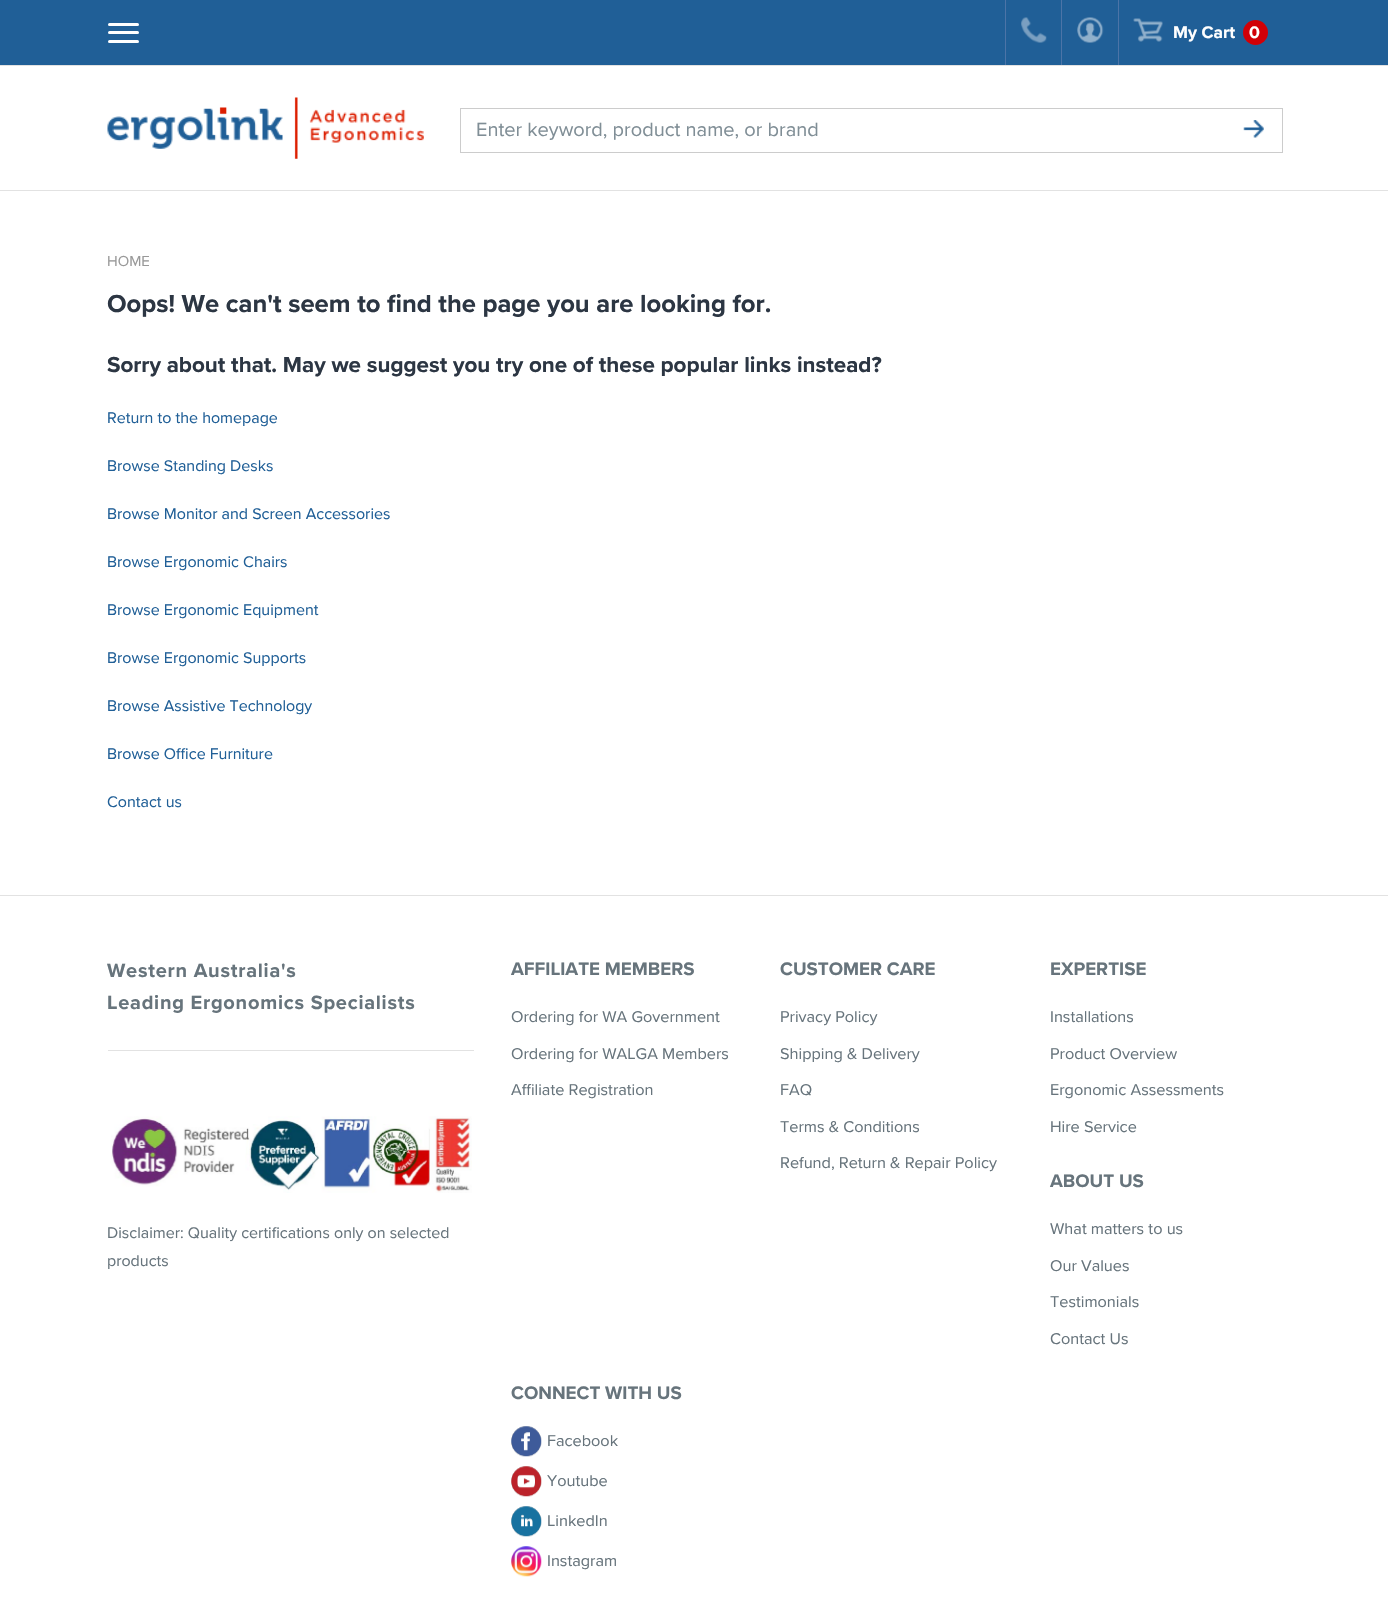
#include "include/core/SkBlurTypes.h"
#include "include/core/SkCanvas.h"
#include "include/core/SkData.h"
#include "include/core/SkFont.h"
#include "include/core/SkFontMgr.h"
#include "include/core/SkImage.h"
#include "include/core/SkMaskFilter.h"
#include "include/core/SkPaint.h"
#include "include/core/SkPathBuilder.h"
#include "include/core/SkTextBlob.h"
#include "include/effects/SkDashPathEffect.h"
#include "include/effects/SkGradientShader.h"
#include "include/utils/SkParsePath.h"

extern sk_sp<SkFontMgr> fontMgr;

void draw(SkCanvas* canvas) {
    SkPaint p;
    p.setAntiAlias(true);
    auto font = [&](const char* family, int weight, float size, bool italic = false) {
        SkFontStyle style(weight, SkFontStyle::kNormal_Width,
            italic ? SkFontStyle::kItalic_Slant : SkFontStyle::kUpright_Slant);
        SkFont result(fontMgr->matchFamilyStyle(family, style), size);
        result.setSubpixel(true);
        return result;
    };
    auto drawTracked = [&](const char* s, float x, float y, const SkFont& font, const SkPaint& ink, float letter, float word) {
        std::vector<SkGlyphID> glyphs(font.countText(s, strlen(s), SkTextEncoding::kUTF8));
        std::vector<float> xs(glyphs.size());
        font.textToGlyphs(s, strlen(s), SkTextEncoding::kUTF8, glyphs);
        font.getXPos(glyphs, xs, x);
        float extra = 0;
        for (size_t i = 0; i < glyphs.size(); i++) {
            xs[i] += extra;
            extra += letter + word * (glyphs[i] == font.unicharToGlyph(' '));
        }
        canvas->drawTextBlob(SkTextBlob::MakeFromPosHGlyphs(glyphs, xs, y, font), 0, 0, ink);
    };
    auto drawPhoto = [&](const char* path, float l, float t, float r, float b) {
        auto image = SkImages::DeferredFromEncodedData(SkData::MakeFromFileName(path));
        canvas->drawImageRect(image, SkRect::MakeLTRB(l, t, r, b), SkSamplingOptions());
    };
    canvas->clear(0xFFFFFFFF);
    p.setColor(0xFF205F97);
    canvas->drawRect(SkRect::MakeLTRB(0, 0, 1388, 65), p);
    p.setColor(0xFFE2E2E2);
    canvas->drawRect(SkRect::MakeLTRB(0, 65, 1388, 66), p);
    p.setColor(0xFFFFFFFF);
    canvas->drawRoundRect(SkRect::MakeLTRB(108, 23, 139, 26), 1.5f, 1.5f, p);
    canvas->drawRoundRect(SkRect::MakeLTRB(108, 31, 139, 34), 1.5f, 1.5f, p);
    canvas->drawRoundRect(SkRect::MakeLTRB(108, 40, 139, 43), 1.5f, 1.5f, p);
    p.setColor(0xFF4C74A7);
    canvas->drawRect(SkRect::MakeLTRB(1005, 0, 1006, 65), p);
    drawPhoto("media/1.png", 1021, 17, 1047, 43);
    canvas->drawRect(SkRect::MakeLTRB(1061, 0, 1062, 65), p);
    drawPhoto("media/2.png", 1077, 17, 1104, 43);
    canvas->drawRect(SkRect::MakeLTRB(1118, 0, 1119, 65), p);
    drawPhoto("media/3.png", 1133, 18, 1163, 42);
    auto font1 = font("Proxima Nova", 700, 17.5f);
    p.setColor(0xFFFFFFFF);
    canvas->drawString("My Cart", 1173, 38, font1, p);
    p.setColor(0xFFD10007);
    canvas->drawCircle(1255.5f, 32.5f, 12.5f, p);
    p.setColor(0xFFFFFFFF);
    canvas->drawString("0", 1249, 38, font1, p);
    p.setColor(0xFFE2E2E2);
    canvas->drawRect(SkRect::MakeLTRB(0, 190, 1388, 191), p);
    drawPhoto("media/4.png", 107, 97, 424, 159);
    p.setStyle(SkPaint::kStroke_Style);
    p.setStrokeWidth(1);
    p.setColor(0xFFCCCCCC);
    canvas->drawRect(SkRect::MakeLTRB(460.5f, 108.5f, 1282.5f, 152.5f), p);
    auto font2 = font("Proxima Nova", 400, 20);
    p.setStyle(SkPaint::kFill_Style);
    p.setColor(0xFF808E96);
    canvas->drawString("Enter keyword, product name, or brand", 476, 136, font2, p);
    drawPhoto("media/5.png", 1243, 120, 1264, 138);
    auto font3 = font("Proxima Nova", 400, 15);
    p.setColor(0xFF999999);
    canvas->drawString("HOME", 107, 266, font3, p);
    auto font4 = font("Proxima Nova", 700, 25.6f);
    p.setColor(0xFF2C3643);
    canvas->drawString("Oops! We can't seem to find the page you are looking for.", 107, 312, font4, p);
    auto font5 = font("Proxima Nova", 700, 22.4f);
    canvas->drawString("Sorry about that. May we suggest you try one of these popular links instead?", 107, 372, font5, p);
    auto font6 = font("Proxima Nova", 400, 16);
    p.setColor(0xFF205F97);
    {
        const struct { const char* s; float x, y; } items[] = {
            {"Return to the homepage", 107, 423},
            {"Browse Standing Desks", 107, 471},
            {"Browse Monitor and Screen Accessories", 107, 519},
            {"Browse Ergonomic Chairs", 107, 567},
            {"Browse Ergonomic Equipment", 107, 615},
            {"Browse Ergonomic Supports", 107, 663},
            {"Browse Assistive Technology", 107, 711},
            {"Browse Office Furniture", 107, 759},
            {"Contact us", 107, 807},
        };
        for (auto [s, x, y] : items) {
            canvas->drawString(s, x, y, font6, p);
        }
    }
    p.setColor(0xFFE2E2E2);
    canvas->drawRect(SkRect::MakeLTRB(0, 895, 1388, 896), p);
    auto font7 = font("Proxima Nova", 700, 20);
    p.setColor(0xFF67747C);
    drawTracked("Western Australia's", 107, 977, font7, p, 0.75f, 0);
    drawTracked("Leading Ergonomics Specialists", 107, 1009, font7, p, 0.75f, 0);
    p.setColor(0xFFE2E2E2);
    canvas->drawRect(SkRect::MakeLTRB(108, 1050, 474, 1051), p);
    drawPhoto("media/6.png", 110, 1116, 472, 1193);
    p.setColor(0xFF67747C);
    canvas->drawString("Disclaimer: Quality certifications only on selected", 107, 1238, font6, p);
    canvas->drawString("products", 107, 1266, font6, p);
    auto font8 = font("Proxima Nova", 700, 18.75f);
    canvas->drawString("AFFILIATE MEMBERS", 511, 975, font8, p);
    auto font9 = font("Proxima Nova", 400, 16.25f);
    {
        const struct { const char* s; float x, y; } items[] = {
            {"Ordering for WA Government", 511, 1022},
            {"Ordering for WALGA Members", 511, 1059},
            {"Affiliate Registration", 511, 1095},
        };
        for (auto [s, x, y] : items) {
            canvas->drawString(s, x, y, font9, p);
        }
    }
    canvas->drawString("CUSTOMER CARE", 780, 975, font8, p);
    {
        const struct { const char* s; float x, y; } items[] = {
            {"Privacy Policy", 780, 1022},
            {"Shipping & Delivery", 780, 1059},
            {"FAQ", 780, 1095},
            {"Terms & Conditions", 780, 1132},
            {"Refund, Return & Repair Policy", 780, 1168},
        };
        for (auto [s, x, y] : items) {
            canvas->drawString(s, x, y, font9, p);
        }
    }
    canvas->drawString("EXPERTISE", 1050, 975, font8, p);
    {
        const struct { const char* s; float x, y; } items[] = {
            {"Installations", 1050, 1022},
            {"Product Overview", 1050, 1059},
            {"Ergonomic Assessments", 1050, 1095},
            {"Hire Service", 1050, 1132},
        };
        for (auto [s, x, y] : items) {
            canvas->drawString(s, x, y, font9, p);
        }
    }
    canvas->drawString("ABOUT US", 1050, 1187, font8, p);
    {
        const struct { const char* s; float x, y; } items[] = {
            {"What matters to us", 1050, 1234},
            {"Our Values", 1050, 1271},
            {"Testimonials", 1050, 1307},
            {"Contact Us", 1050, 1344},
        };
        for (auto [s, x, y] : items) {
            canvas->drawString(s, x, y, font9, p);
        }
    }
    canvas->drawString("CONNECT WITH US", 511, 1399, font8, p);
    drawPhoto("media/7.png", 511, 1426, 542, 1457);
    canvas->drawString("Facebook", 547, 1446, font9, p);
    drawPhoto("media/8.png", 511, 1466, 542, 1497);
    canvas->drawString("Youtube", 547, 1486, font9, p);
    drawPhoto("media/9.png", 511, 1506, 542, 1537);
    canvas->drawString("LinkedIn", 547, 1526, font9, p);
    drawPhoto("media/10.png", 511, 1546, 542, 1577);
    canvas->drawString("Instagram", 547, 1566, font9, p);
}
